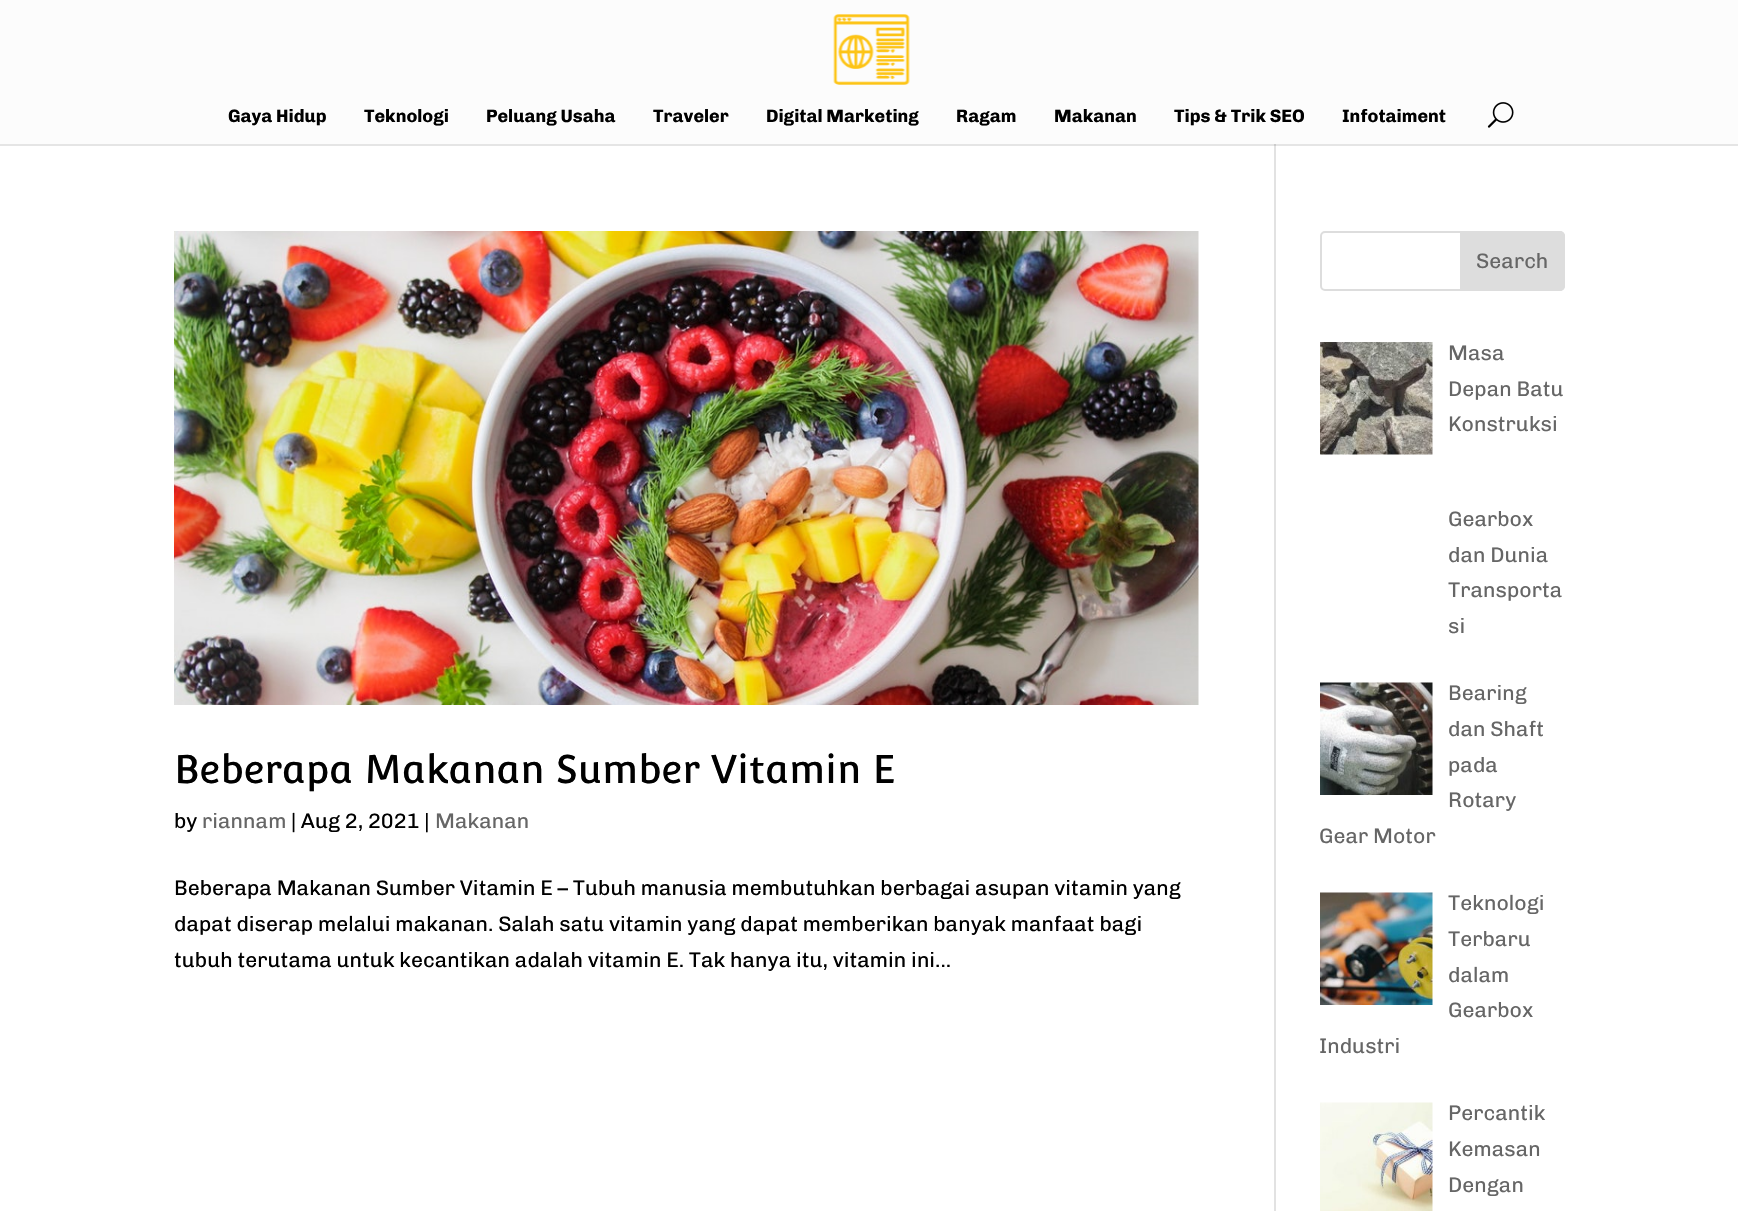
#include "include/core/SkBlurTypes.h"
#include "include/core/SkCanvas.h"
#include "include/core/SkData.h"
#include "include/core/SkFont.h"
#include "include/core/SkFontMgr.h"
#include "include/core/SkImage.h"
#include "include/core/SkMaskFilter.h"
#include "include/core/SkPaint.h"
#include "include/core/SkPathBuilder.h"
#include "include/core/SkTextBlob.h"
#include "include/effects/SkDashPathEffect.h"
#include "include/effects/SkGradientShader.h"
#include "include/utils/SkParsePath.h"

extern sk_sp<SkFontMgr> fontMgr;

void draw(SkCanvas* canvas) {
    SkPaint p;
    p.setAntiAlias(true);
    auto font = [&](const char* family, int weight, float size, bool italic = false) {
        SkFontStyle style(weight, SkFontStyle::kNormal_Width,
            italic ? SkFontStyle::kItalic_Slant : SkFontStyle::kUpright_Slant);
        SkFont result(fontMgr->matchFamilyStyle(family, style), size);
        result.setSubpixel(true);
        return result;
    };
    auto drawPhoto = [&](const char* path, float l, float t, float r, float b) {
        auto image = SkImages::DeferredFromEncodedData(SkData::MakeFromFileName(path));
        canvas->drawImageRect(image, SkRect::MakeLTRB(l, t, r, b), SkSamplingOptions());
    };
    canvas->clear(0xFFFFFFFF);
    p.setColor(0xFFE2E2E2);
    canvas->drawRect(SkRect::MakeLTRB(1274, 144, 1276, 1211), p);
    p.setColor(0x1A000000);
    canvas->drawPath(SkPathBuilder().moveTo(0, 144).lineTo(0, 146).lineTo(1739, 146).lineTo(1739, 2).lineTo(1738, 2).lineTo(1738, 144).close().detach(), p);
    p.setColor(0xFFFCFCFC);
    canvas->drawRect(SkRect::MakeLTRB(0, 0, 1738, 144), p);
    drawPhoto("media/1.png", 833, 14, 910, 85);
    auto font1 = font("Chivo", 700, 18);
    p.setColor(0xFF000000);
    {
        const struct { const char* s; float x, y; } items[] = {
            {"Gaya Hidup", 228, 122},
            {"Teknologi", 364, 122},
            {"Peluang Usaha", 486, 122},
            {"Traveler", 653, 122},
            {"Digital Marketing", 766, 122},
            {"Ragam", 956, 122},
            {"Makanan", 1054, 122},
            {"Tips & Trik SEO", 1174, 122},
            {"Infotaiment", 1342, 122},
        };
        for (auto [s, x, y] : items) {
            canvas->drawString(s, x, y, font1, p);
        }
    }
    drawPhoto("media/2.png", 1487, 102, 1514, 128);
    drawPhoto("media/3.png", 174, 231, 1199, 705);
    auto font2 = font("Convergence", 400, 39);
    canvas->drawString("Beberapa Makanan Sumber Vitamin E", 174, 783, font2, p);
    auto font3 = font("Chivo", 400, 21);
    canvas->drawString("by", 174, 828, font3, p);
    p.setColor(0xFF666666);
    canvas->drawString("riannam", 202, 828, font3, p);
    p.setColor(0xFF000000);
    canvas->drawString("| Aug 2, 2021 |", 291, 828, font3, p);
    p.setColor(0xFF666666);
    canvas->drawString("Makanan", 435, 828, font3, p);
    p.setColor(0xFF000000);
    {
        const struct { const char* s; float x, y; } items[] = {
            {"Beberapa Makanan Sumber Vitamin E – Tubuh manusia membutuhkan berbagai asupan vitamin yang", 174, 895},
            {"dapat diserap melalui makanan. Salah satu vitamin yang dapat memberikan banyak manfaat bagi", 174, 931},
            {"tubuh terutama untuk kecantikan adalah vitamin E. Tak hanya itu, vitamin ini...", 174, 967},
        };
        for (auto [s, x, y] : items) {
            canvas->drawString(s, x, y, font3, p);
        }
    }
    p.setStyle(SkPaint::kStroke_Style);
    p.setStrokeWidth(2);
    p.setColor(0xFFDDDDDD);
    canvas->drawRoundRect(SkRect::MakeLTRB(1321, 232, 1564, 290), 4, 4, p);
    p.setStyle(SkPaint::kFill_Style);
    canvas->drawPath(SkPathBuilder().moveTo(1461, 232).lineTo(1560, 232).cubicTo(1562, 232, 1564, 234, 1564, 236).lineTo(1564, 286).cubicTo(1564, 288, 1562, 290, 1560, 290).lineTo(1461, 290).close().detach(), p);
    p.setStyle(SkPaint::kStroke_Style);
    canvas->drawPath(SkPathBuilder().moveTo(1461, 232).lineTo(1560, 232).cubicTo(1562, 232, 1564, 234, 1564, 236).lineTo(1564, 286).cubicTo(1564, 288, 1562, 290, 1560, 290).lineTo(1461, 290).close().detach(), p);
    p.setStyle(SkPaint::kFill_Style);
    p.setColor(0xFF666666);
    canvas->drawString("Search", 1476, 268, font3, p);
    drawPhoto("media/4.png", 1320, 342, 1433, 455);
    {
        const struct { const char* s; float x, y; } items[] = {
            {"Masa", 1448, 360},
            {"Depan Batu", 1448, 396},
            {"Konstruksi", 1448, 431},
            {"Gearbox", 1448, 526},
            {"dan Dunia", 1448, 562},
            {"Transporta", 1448, 597},
            {"si", 1448, 633},
        };
        for (auto [s, x, y] : items) {
            canvas->drawString(s, x, y, font3, p);
        }
    }
    drawPhoto("media/5.png", 1320, 682, 1433, 795);
    {
        const struct { const char* s; float x, y; } items[] = {
            {"Bearing", 1448, 700},
            {"dan Shaft", 1448, 736},
            {"pada", 1448, 772},
            {"Rotary", 1448, 807},
            {"Gear Motor", 1319, 843},
        };
        for (auto [s, x, y] : items) {
            canvas->drawString(s, x, y, font3, p);
        }
    }
    drawPhoto("media/6.png", 1320, 892, 1433, 1005);
    {
        const struct { const char* s; float x, y; } items[] = {
            {"Teknologi", 1448, 910},
            {"Terbaru", 1448, 946},
            {"dalam", 1448, 982},
            {"Gearbox", 1448, 1017},
            {"Industri", 1319, 1053},
        };
        for (auto [s, x, y] : items) {
            canvas->drawString(s, x, y, font3, p);
        }
    }
    drawPhoto("media/7.png", 1320, 1102, 1433, 1211);
    {
        const struct { const char* s; float x, y; } items[] = {
            {"Percantik", 1448, 1120},
            {"Kemasan", 1448, 1156},
            {"Dengan", 1448, 1192},
        };
        for (auto [s, x, y] : items) {
            canvas->drawString(s, x, y, font3, p);
        }
    }
}
